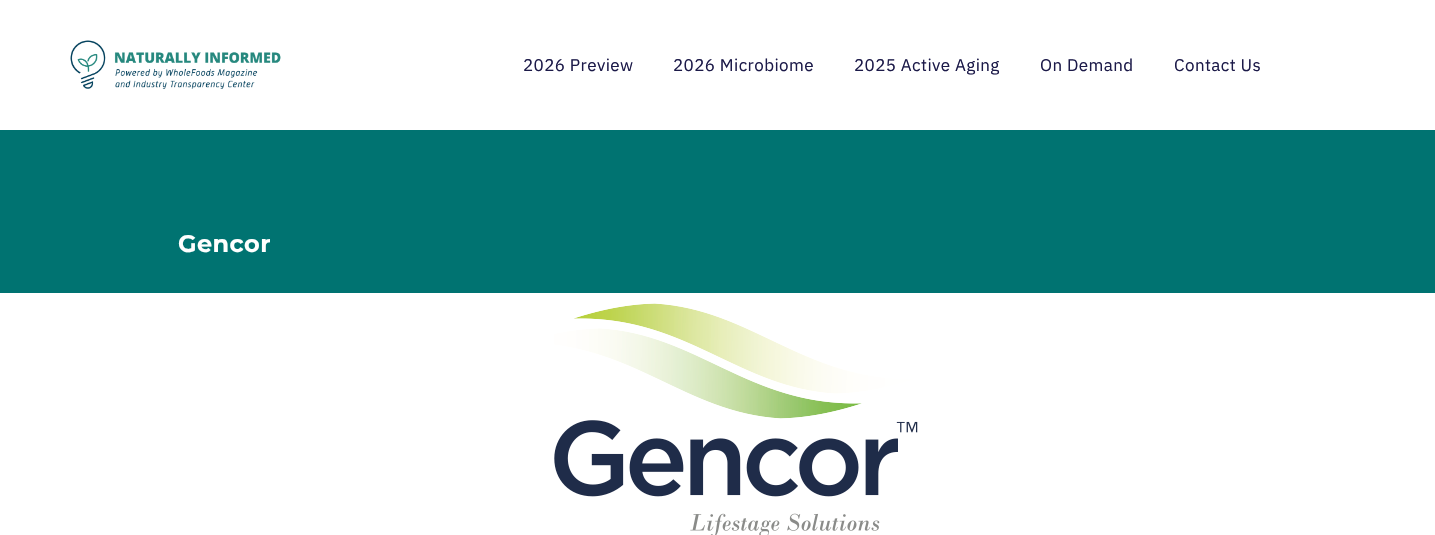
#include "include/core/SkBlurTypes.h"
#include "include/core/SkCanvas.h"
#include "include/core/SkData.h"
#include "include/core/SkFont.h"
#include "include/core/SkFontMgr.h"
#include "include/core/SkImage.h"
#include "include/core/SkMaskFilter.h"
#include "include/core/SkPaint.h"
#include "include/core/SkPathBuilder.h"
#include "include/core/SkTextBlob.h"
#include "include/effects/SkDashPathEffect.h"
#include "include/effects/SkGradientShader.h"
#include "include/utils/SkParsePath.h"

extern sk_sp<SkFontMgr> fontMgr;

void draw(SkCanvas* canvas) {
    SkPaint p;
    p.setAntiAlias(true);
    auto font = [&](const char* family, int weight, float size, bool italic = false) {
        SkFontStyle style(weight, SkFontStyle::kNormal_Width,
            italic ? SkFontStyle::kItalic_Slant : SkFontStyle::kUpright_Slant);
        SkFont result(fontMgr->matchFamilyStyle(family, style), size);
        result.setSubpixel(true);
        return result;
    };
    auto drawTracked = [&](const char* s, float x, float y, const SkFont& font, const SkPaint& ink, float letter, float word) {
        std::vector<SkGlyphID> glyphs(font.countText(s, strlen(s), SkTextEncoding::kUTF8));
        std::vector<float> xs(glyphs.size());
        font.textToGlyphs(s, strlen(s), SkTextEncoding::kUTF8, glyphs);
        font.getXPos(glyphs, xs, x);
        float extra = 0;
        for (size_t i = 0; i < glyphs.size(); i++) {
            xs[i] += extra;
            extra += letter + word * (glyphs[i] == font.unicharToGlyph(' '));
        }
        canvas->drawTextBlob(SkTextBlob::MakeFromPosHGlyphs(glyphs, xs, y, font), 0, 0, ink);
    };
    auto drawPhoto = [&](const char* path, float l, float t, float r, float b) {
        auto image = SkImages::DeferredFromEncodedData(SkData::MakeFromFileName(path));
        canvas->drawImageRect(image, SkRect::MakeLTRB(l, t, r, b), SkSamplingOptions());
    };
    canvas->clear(0xFFFFFFFF);
    drawPhoto("media/1.png", 70, 40, 281, 89);
    auto font1 = font("IBM Plex Sans", 400, 17);
    p.setColor(0xFF1C1A49);
    {
        const struct { const char* s; float x, y; } items[] = {
            {"2026 Preview", 523, 71},
            {"2026 Microbiome", 673, 71},
            {"2025 Active Aging", 854, 71},
            {"On Demand", 1040, 71},
            {"Contact Us", 1174, 71},
        };
        for (auto [s, x, y] : items) {
            drawTracked(s, x, y, font1, p, 0.4f, 0);
        }
    }
    p.setColor(0xFF007371);
    canvas->drawRect(SkRect::MakeLTRB(0, 130, 1435, 293), p);
    auto font2 = font("Montserrat", 700, 24);
    p.setColor(0xFFFFFFFF);
    drawTracked("Gencor", 178, 252, font2, p, 0.4f, 0);
    drawPhoto("media/2.png", 554, 303, 918, 535);
}
